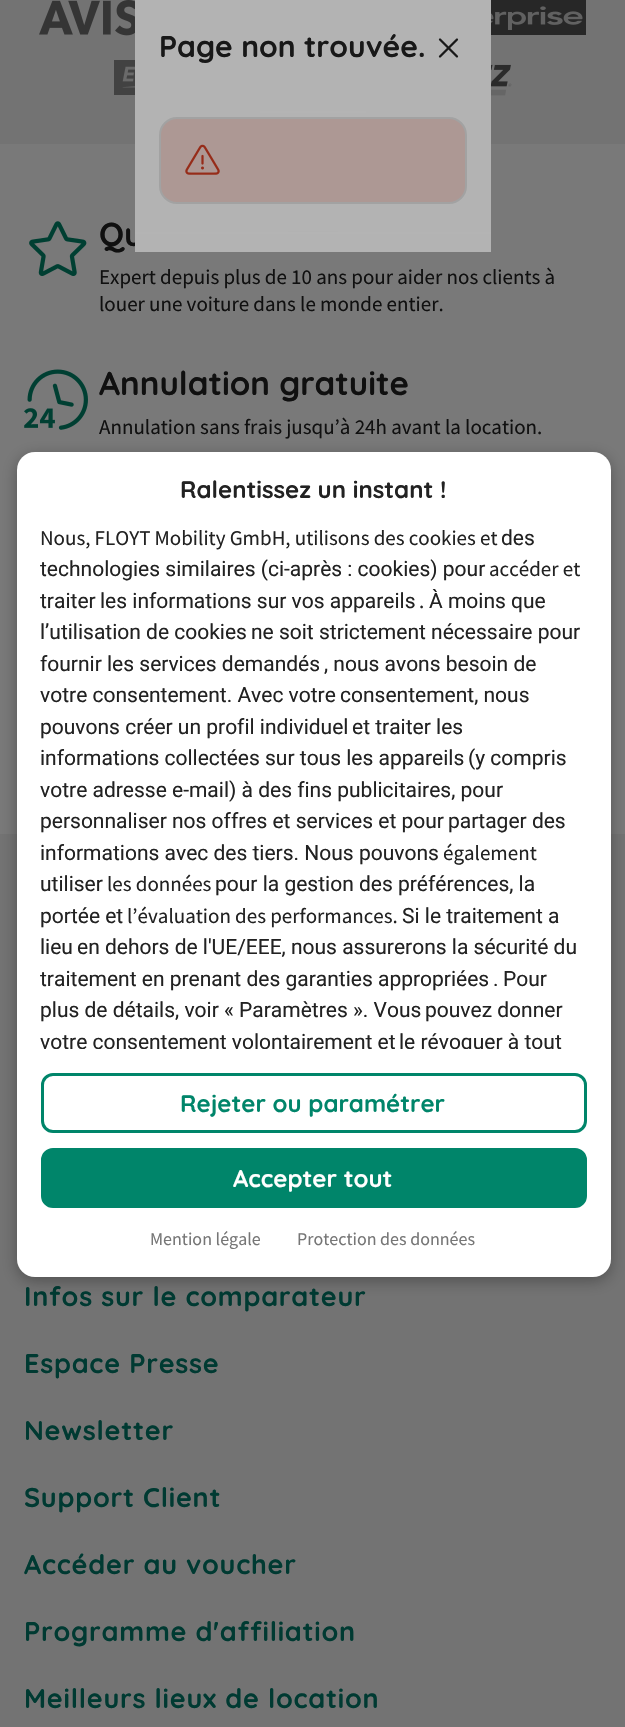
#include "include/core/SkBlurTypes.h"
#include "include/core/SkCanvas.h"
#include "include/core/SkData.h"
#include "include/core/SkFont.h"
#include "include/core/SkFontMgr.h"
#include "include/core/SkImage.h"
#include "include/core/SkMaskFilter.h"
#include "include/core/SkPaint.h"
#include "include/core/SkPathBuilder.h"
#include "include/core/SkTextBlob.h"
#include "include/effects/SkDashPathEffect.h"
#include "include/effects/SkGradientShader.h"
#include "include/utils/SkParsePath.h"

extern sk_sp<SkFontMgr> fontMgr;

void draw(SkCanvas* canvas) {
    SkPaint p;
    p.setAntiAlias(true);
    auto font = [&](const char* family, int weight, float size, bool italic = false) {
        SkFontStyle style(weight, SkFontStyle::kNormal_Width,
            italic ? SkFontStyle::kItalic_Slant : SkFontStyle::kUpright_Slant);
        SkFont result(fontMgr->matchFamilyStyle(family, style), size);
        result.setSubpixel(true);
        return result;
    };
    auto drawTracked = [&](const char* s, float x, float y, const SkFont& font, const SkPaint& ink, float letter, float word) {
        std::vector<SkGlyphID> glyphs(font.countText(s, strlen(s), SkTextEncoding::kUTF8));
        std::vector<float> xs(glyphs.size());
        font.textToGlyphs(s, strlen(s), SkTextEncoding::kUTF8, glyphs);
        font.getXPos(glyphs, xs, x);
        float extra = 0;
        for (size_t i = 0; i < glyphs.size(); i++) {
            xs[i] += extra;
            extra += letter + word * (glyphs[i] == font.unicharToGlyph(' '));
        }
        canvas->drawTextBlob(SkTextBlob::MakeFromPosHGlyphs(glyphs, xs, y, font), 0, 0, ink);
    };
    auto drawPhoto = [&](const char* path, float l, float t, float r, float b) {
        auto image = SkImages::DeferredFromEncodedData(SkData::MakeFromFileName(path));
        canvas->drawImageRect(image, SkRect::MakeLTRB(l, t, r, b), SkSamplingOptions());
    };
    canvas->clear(0xFF797979);
    p.setColor(0xFF737373);
    canvas->drawRect(SkRect::MakeLTRB(0, 0, 625, 144), p);
    auto font1 = font("Quicksand", 300, 33);
    p.setColor(0xFF101010);
    canvas->drawString("Qu", 99, 246, font1, p);
    p.setColor(0xFFB3B3B3);
    canvas->drawRect(SkRect::MakeLTRB(135, 0, 491, 231), p);
    auto font2 = font("Quicksand", 300, 30);
    p.setColor(0xFF181818);
    canvas->drawString("Page non trouvée.", 159, 57, font2, p);
    drawPhoto("media/1.png", 438, 38, 459, 58);
    {
        const SkColor colors[] = {0xFF8F8F8F, 0xFFB3B3B3};
        const float stops[] = {0, 1};
        SkMatrix m = SkMatrix::Translate(313, 252).preScale(178, 21);
        p.setShader(SkGradientShader::MakeRadial({0, 0}, 1, colors, stops, 2, SkTileMode::kClamp, 0, &m));
        p.setAlpha(255);
    }
    canvas->drawRect(SkRect::MakeLTRB(135, 231, 491, 234), p);
    {
        const SkColor colors[] = {0xFF8F8F8F, 0xFFB3B3B3};
        const float stops[] = {0, 1};
        SkMatrix m = SkMatrix::Translate(313, 93).preScale(178, 21);
        p.setShader(SkGradientShader::MakeRadial({0, 0}, 1, colors, stops, 2, SkTileMode::kClamp, 0, &m));
        p.setAlpha(255);
    }
    canvas->drawRect(SkRect::MakeLTRB(260, 111, 366, 113), p);
    {
        const SkColor colors[] = {0x00B3B3B3, 0xFFB3B3B3};
        const float stops[] = {0, 0.7f};
        const SkPoint ends[] = {{313, 192}, {313, 252}};
        p.setShader(SkGradientShader::MakeLinear(ends, colors, stops, 2, SkTileMode::kClamp));
        p.setAlpha(255);
    }
    canvas->drawRect(SkRect::MakeLTRB(135, 232, 491, 252), p);
    {
        const SkColor colors[] = {0xFFB3B3B3, 0x00B3B3B3};
        const float stops[] = {0.3f, 1};
        const SkPoint ends[] = {{313, 93}, {313, 153}};
        p.setShader(SkGradientShader::MakeLinear(ends, colors, stops, 2, SkTileMode::kClamp));
        p.setAlpha(255);
    }
    canvas->drawRect(SkRect::MakeLTRB(260, 111, 366, 113), p);
    p.setShader(nullptr);
    p.setColor(0xFFAD9894);
    canvas->drawRoundRect(SkRect::MakeLTRB(160, 118, 466, 203), 17, 17, p);
    p.setStyle(SkPaint::kStroke_Style);
    p.setStrokeWidth(2);
    p.setColor(0xFFA2A2A2);
    canvas->drawRoundRect(SkRect::MakeLTRB(160, 118, 466, 203), 17, 17, p);
    drawPhoto("media/2.png", 185, 144, 220, 175);
    drawPhoto("media/3.png", 39, 0, 135, 36);
    drawPhoto("media/4.png", 491, 0, 586, 35);
    drawPhoto("media/5.png", 114, 60, 135, 95);
    drawPhoto("media/6.png", 491, 64, 512, 96);
    drawPhoto("media/7.png", 29, 221, 87, 276);
    auto font3 = font("Source Sans Pro", 400, 21);
    p.setStyle(SkPaint::kFill_Style);
    p.setColor(0xFF101010);
    canvas->drawString("Expert depuis plus de 10 ans pour aider nos clients à", 99, 284, font3, p);
    canvas->drawString("louer une voiture dans le monde entier.", 99, 311, font3, p);
    drawPhoto("media/8.png", 24, 369, 88, 430);
    canvas->drawString("Annulation gratuite", 99, 395, font1, p);
    canvas->drawString("Annulation sans frais jusqu’à 24h avant la location.", 99, 434, font3, p);
    p.setColor(0xFF737373);
    canvas->drawRect(SkRect::MakeLTRB(0, 834, 625, 1727), p);
    auto font4 = font("Quicksand", 300, 27);
    p.setColor(0xFF003A32);
    {
        const struct { const char* s; float x, y; } items[] = {
            {"Infos sur le comparateur", 24, 1306},
            {"Espace Presse", 24, 1373},
            {"Newsletter", 24, 1440},
            {"Support Client", 24, 1507},
            {"Accéder au voucher", 24, 1574},
            {"Programme d'affiliation", 24, 1641},
            {"Meilleurs lieux de location", 24, 1708},
        };
        for (auto [s, x, y] : items) {
            drawTracked(s, x, y, font4, p, 0.75f, 0);
        }
    }
    p.setColor(0x4D000000);
    p.setMaskFilter(SkMaskFilter::MakeBlur(kNormal_SkBlurStyle, 7.5f));
    canvas->drawRoundRect(SkRect::MakeLTRB(17, 456, 611, 1281), 18, 18, p);
    p.setMaskFilter(nullptr);
    p.setColor(0xFFFFFFFF);
    canvas->drawRoundRect(SkRect::MakeLTRB(17, 452, 611, 1277), 18, 18, p);
    auto font5 = font("Quicksand", 300, 24);
    p.setColor(0xFF222222);
    canvas->drawString("Ralentissez un instant !", 180, 498, font5, p);
    {
        const SkColor colors[] = {0xFFCCCCCC, 0xFFFFFFFF};
        const float stops[] = {0, 1};
        SkMatrix m = SkMatrix::Translate(313, 1049).preScale(297, 21);
        p.setShader(SkGradientShader::MakeRadial({0, 0}, 1, colors, stops, 2, SkTileMode::kClamp, 0, &m));
        p.setAlpha(255);
    }
    canvas->drawRect(SkRect::MakeLTRB(207, 1029, 419, 1031), p);
    {
        const SkColor colors[] = {0xFFCCCCCC, 0xFFFFFFFF};
        const float stops[] = {0, 1};
        SkMatrix m = SkMatrix::Translate(313, 522).preScale(297, 21);
        p.setShader(SkGradientShader::MakeRadial({0, 0}, 1, colors, stops, 2, SkTileMode::kClamp, 0, &m));
        p.setAlpha(255);
    }
    canvas->drawRect(SkRect::MakeLTRB(207, 540, 419, 542), p);
    {
        const SkColor colors[] = {0x00FFFFFF, 0xFFFFFFFF};
        const float stops[] = {0, 0.7f};
        const SkPoint ends[] = {{313, 989}, {313, 1049}};
        p.setShader(SkGradientShader::MakeLinear(ends, colors, stops, 2, SkTileMode::kClamp));
        p.setAlpha(255);
    }
    canvas->drawRect(SkRect::MakeLTRB(207, 1029, 419, 1031), p);
    {
        const SkColor colors[] = {0xFFFFFFFF, 0x00FFFFFF};
        const float stops[] = {0.3f, 1};
        const SkPoint ends[] = {{313, 522}, {313, 582}};
        p.setShader(SkGradientShader::MakeLinear(ends, colors, stops, 2, SkTileMode::kClamp));
        p.setAlpha(255);
    }
    canvas->drawRect(SkRect::MakeLTRB(207, 540, 419, 542), p);
    p.setShader(nullptr);
    p.setColor(0xFF222222);
    canvas->drawString("Nous, FLOYT Mobility GmbH, utilisons des cookies et", 40, 545, font3, p);
    auto font6 = font("Roboto", 400, 21);
    canvas->drawString("des", 501, 545, font6, p);
    canvas->drawString("technologies similaires (ci-après : cookies) pour", 40, 576, font6, p);
    canvas->drawString("accéder et", 489, 576, font3, p);
    canvas->drawString("traiter", 40, 608, font6, p);
    canvas->drawString("les informations sur vos appareils", 100, 608, font6, p);
    canvas->drawString(".", 419, 608, font3, p);
    {
        const struct { const char* s; float x, y; } items[] = {
            {"À moins que", 429, 608},
            {"l’utilisation de cookies", 40, 639},
            {"ne soit strictement nécessaire pour", 251, 639},
            {"fournir les services demandés", 40, 671},
            {", nous avons besoin de", 324, 671},
            {"votre consentement. Avec votre", 40, 702},
            {"consentement, nous", 340, 702},
            {"pouvons créer un profil individuel", 40, 734},
            {"et traiter les", 352, 734},
            {"informations collectées sur tous les appareils", 40, 765},
            {"(y compris", 468, 765},
            {"votre adresse e-mail) à des fins publicitaires, pour", 40, 797},
            {"personnaliser nos offres et services et pour", 40, 828},
            {"partager des", 448, 828},
            {"informations avec des tiers. Nous pouvons", 40, 860},
        };
        for (auto [s, x, y] : items) {
            canvas->drawString(s, x, y, font6, p);
        }
    }
    canvas->drawString("également", 443, 860, font3, p);
    canvas->drawString("utiliser", 40, 891, font6, p);
    canvas->drawString("les données", 107, 891, font3, p);
    canvas->drawString("pour la gestion des préférences, la", 215, 891, font6, p);
    canvas->drawString("portée et", 40, 923, font6, p);
    canvas->drawString("l’évaluation des performances.", 127, 923, font3, p);
    {
        const struct { const char* s; float x, y; } items[] = {
            {"Si le traitement a", 402, 923},
            {"lieu", 40, 954},
            {"en dehors de l'UE/EEE, nous assurerons la sécurité du", 77, 954},
            {"traitement en prenant des garanties appropriées", 40, 986},
            {".", 493, 986},
            {"Pour", 503, 986},
            {"plus de détails, voir « Paramètres ». Vous", 40, 1017},
            {"pouvez donner", 425, 1017},
        };
        for (auto [s, x, y] : items) {
            canvas->drawString(s, x, y, font6, p);
        }
    }
    canvas->save();
    canvas->clipRect(SkRect::MakeLTRB(17, 522, 611, 1049));
    canvas->drawString("votre consentement volontairement et", 40, 1049, font6, p);
    canvas->drawString("le révoquer à tout", 399, 1049, font6, p);
    canvas->restore();
    p.setStyle(SkPaint::kStroke_Style);
    p.setStrokeWidth(3);
    p.setColor(0xFF00856A);
    canvas->drawRoundRect(SkRect::MakeLTRB(42.5f, 1074.5f, 585.5f, 1131.5f), 10.5f, 10.5f, p);
    p.setStyle(SkPaint::kFill_Style);
    canvas->drawString("Rejeter ou paramétrer", 180, 1112, font5, p);
    canvas->drawRoundRect(SkRect::MakeLTRB(42.5f, 1149.5f, 585.5f, 1206.5f), 10.5f, 10.5f, p);
    p.setStyle(SkPaint::kStroke_Style);
    canvas->drawRoundRect(SkRect::MakeLTRB(42.5f, 1149.5f, 585.5f, 1206.5f), 10.5f, 10.5f, p);
    p.setStyle(SkPaint::kFill_Style);
    p.setColor(0xFFFFFFFF);
    canvas->drawString("Accepter tout", 233, 1187, font5, p);
    auto font7 = font("Source Sans Pro", 400, 18);
    p.setColor(0xFF767676);
    canvas->drawString("Mention légale", 150, 1245, font7, p);
    canvas->drawString("Protection des données", 297, 1245, font7, p);
}
